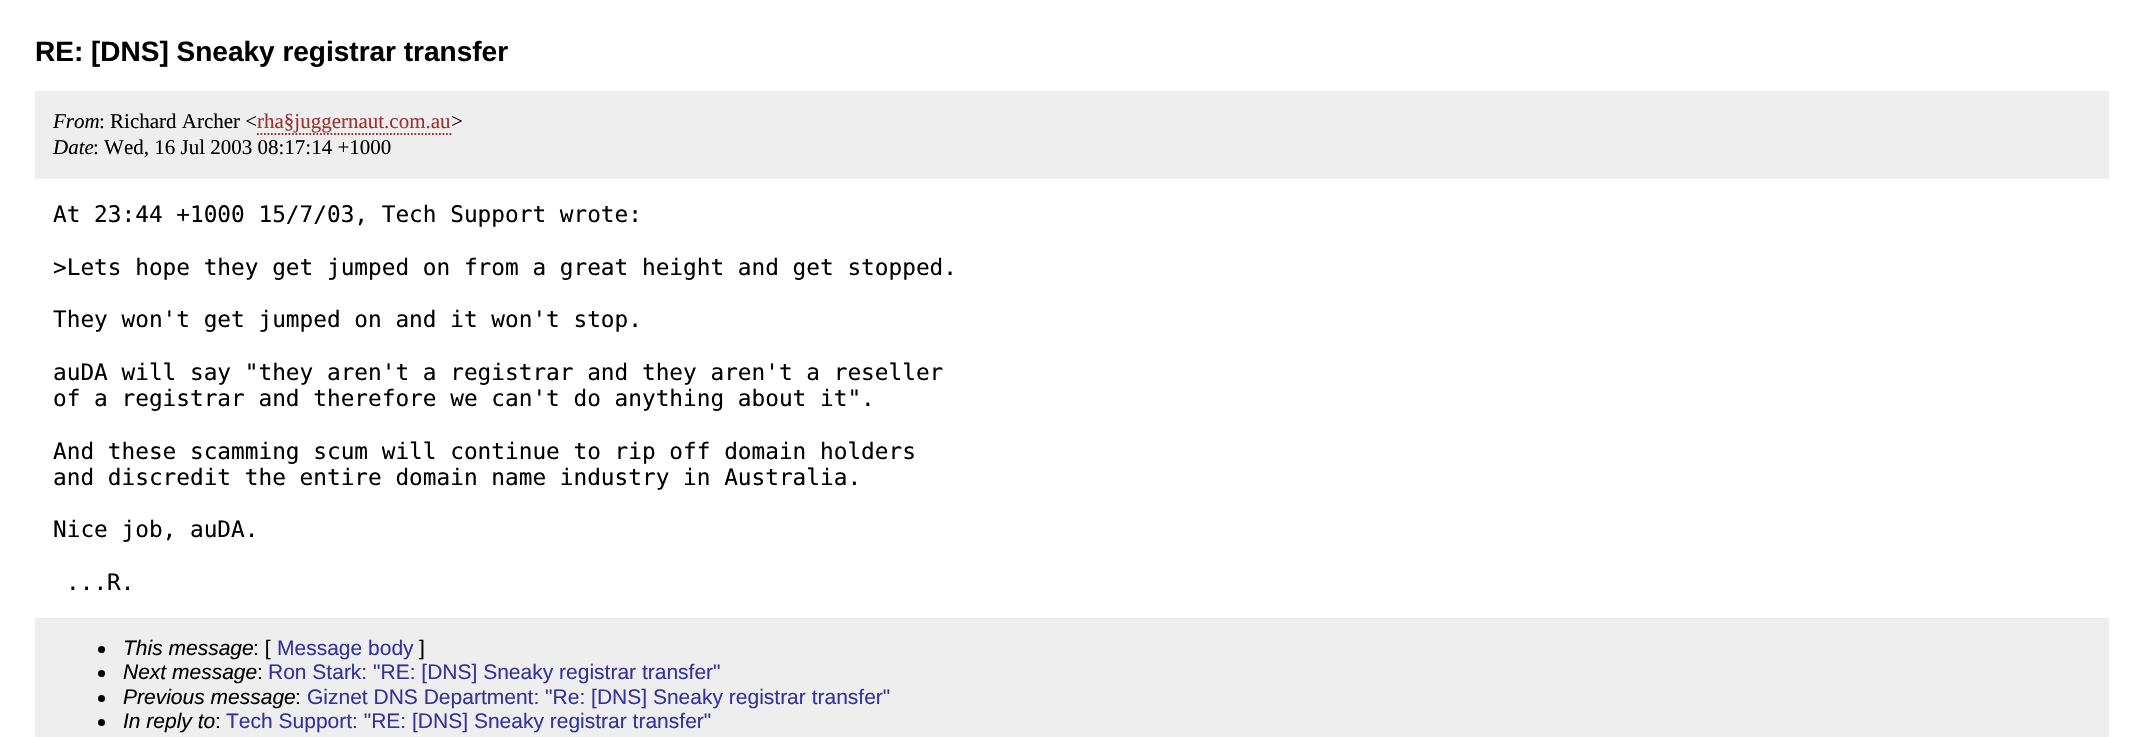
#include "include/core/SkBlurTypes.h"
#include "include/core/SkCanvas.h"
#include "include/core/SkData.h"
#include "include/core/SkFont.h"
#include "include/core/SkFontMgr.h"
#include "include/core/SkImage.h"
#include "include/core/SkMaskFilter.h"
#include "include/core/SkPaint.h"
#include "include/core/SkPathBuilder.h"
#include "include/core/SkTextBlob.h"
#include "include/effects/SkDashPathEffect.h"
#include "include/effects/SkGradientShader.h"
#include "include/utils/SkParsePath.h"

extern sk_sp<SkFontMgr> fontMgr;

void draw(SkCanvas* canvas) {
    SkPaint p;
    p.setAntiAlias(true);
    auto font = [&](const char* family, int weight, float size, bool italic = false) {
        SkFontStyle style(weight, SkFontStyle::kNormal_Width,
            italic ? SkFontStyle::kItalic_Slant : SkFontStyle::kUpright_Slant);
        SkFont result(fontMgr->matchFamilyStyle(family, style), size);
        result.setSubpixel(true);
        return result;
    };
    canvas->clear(0xFFFFFFFF);
    auto font1 = font("Liberation Sans", 700, 28);
    p.setColor(0xFF000000);
    canvas->drawString("RE: [DNS] Sneaky registrar transfer", 35, 61, font1, p);
    p.setColor(0xFFEEEEEE);
    canvas->drawRect(SkRect::MakeLTRB(35, 91, 2109, 179), p);
    auto font2 = font("Liberation Serif", 400, 21, true);
    p.setColor(0xFF000000);
    canvas->drawString("From", 53, 128, font2, p);
    auto font3 = font("Liberation Serif", 400, 21);
    canvas->drawString(": Richard Archer <", 99, 128, font3, p);
    p.setColor(0xFF993333);
    canvas->drawString("rha§juggernaut.com.au", 257, 128, font3, p);
    p.setStyle(SkPaint::kStroke_Style);
    p.setStrokeWidth(1.8f);
    p.setPathEffect(SkDashPathEffect::Make({{1.75f, 1.75f}}, 0));
    canvas->drawPath(SkPathBuilder().moveTo(257, 134).lineTo(451.5f, 134).detach(), p);
    p.setPathEffect(nullptr);
    p.setStyle(SkPaint::kFill_Style);
    p.setColor(0xFF000000);
    canvas->drawString(">", 451, 128, font3, p);
    canvas->drawString("Date", 53, 154, font2, p);
    canvas->drawString(": Wed, 16 Jul 2003 08:17:14 +1000", 93, 154, font3, p);
    auto font4 = font("DejaVu Sans Mono", 400, 22.75f);
    {
        const struct { const char* s; float x, y; } items[] = {
            {"At 23:44 +1000 15/7/03, Tech Support wrote:", 53, 222},
            {">Lets hope they get jumped on from a great height and get stopped.", 53, 275},
            {"They won't get jumped on and it won't stop.", 53, 327},
            {"auDA will say \"they aren't a registrar and they aren't a reseller", 53, 380},
            {"of a registrar and therefore we can't do anything about it\".", 53, 406},
            {"And these scamming scum will continue to rip off domain holders", 53, 459},
            {"and discredit the entire domain name industry in Australia.", 53, 485},
            {"Nice job, auDA.", 53, 537},
            {"...R.", 66, 590},
        };
        for (auto [s, x, y] : items) {
            canvas->drawString(s, x, y, font4, p);
        }
    }
    p.setColor(0xFFEEEEEE);
    canvas->drawRect(SkRect::MakeLTRB(35, 618, 2109, 737), p);
    p.setColor(0xFF000000);
    canvas->drawCircle(101.5f, 649.5f, 3.5f, p);
    auto font5 = font("Liberation Sans", 400, 21, true);
    canvas->drawString("This message", 123, 655, font5, p);
    auto font6 = font("Liberation Sans", 400, 21);
    canvas->drawString(": [", 253, 655, font6, p);
    p.setColor(0xFF333399);
    canvas->drawString("Message body", 277, 655, font6, p);
    p.setColor(0xFF000000);
    canvas->drawString("]", 419, 655, font6, p);
    canvas->drawCircle(101.5f, 673.5f, 3.5f, p);
    canvas->drawString("Next message", 123, 679, font5, p);
    canvas->drawString(":", 257, 679, font6, p);
    p.setColor(0xFF333399);
    canvas->drawString("Ron Stark: \"RE: [DNS] Sneaky registrar transfer\"", 268, 679, font6, p);
    p.setColor(0xFF000000);
    canvas->drawCircle(101.5f, 698.5f, 3.5f, p);
    canvas->drawString("Previous message", 123, 704, font5, p);
    canvas->drawString(":", 295, 704, font6, p);
    p.setColor(0xFF333399);
    canvas->drawString("Giznet DNS Department: \"Re: [DNS] Sneaky registrar transfer\"", 307, 704, font6, p);
    p.setColor(0xFF000000);
    canvas->drawCircle(101.5f, 722.5f, 3.5f, p);
    canvas->drawString("In reply to", 123, 728, font5, p);
    canvas->drawString(":", 215, 728, font6, p);
    p.setColor(0xFF333399);
    canvas->drawString("Tech Support: \"RE: [DNS] Sneaky registrar transfer\"", 226, 728, font6, p);
}
